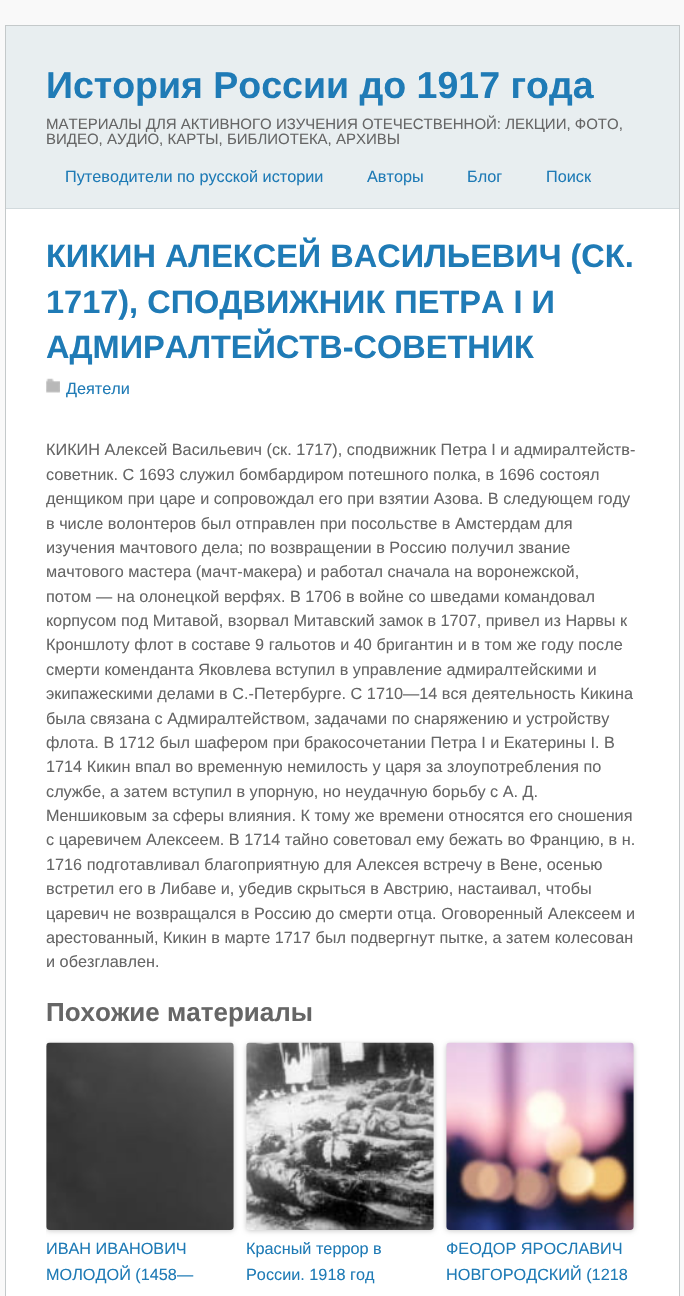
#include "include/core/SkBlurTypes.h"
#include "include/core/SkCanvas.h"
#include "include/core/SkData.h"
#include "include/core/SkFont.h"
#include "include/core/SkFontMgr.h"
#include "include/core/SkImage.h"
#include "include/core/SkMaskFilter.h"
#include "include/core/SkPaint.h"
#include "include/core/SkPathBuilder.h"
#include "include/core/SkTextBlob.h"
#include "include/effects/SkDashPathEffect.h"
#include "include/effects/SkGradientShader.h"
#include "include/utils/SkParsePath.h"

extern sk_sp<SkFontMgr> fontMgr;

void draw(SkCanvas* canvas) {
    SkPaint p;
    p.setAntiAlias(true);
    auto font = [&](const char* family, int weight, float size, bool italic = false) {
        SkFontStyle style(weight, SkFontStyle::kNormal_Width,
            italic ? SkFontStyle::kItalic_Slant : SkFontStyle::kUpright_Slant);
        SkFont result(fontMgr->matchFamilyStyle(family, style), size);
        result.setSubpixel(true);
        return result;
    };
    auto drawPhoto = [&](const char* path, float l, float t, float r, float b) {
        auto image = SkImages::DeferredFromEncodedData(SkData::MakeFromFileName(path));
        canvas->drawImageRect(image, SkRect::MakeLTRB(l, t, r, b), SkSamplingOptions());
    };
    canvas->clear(0xFFF9F9F9);
    p.setStyle(SkPaint::kStroke_Style);
    p.setStrokeWidth(1);
    p.setColor(0xFFC4C9CA);
    canvas->drawRect(SkRect::MakeLTRB(5.5f, 25.5f, 679.5f, 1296.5f), p);
    p.setStyle(SkPaint::kFill_Style);
    p.setColor(0xFFE8EEF0);
    canvas->drawRect(SkRect::MakeLTRB(6, 26, 679, 208), p);
    p.setColor(0xFFD2DADD);
    canvas->drawRect(SkRect::MakeLTRB(6, 208, 679, 209), p);
    auto font1 = font("Liberation Sans", 700, 37.5f);
    p.setColor(0xFF1F7BB6);
    canvas->drawString("История России до 1917 года", 46, 98, font1, p);
    auto font2 = font("Liberation Sans", 400, 15);
    p.setColor(0xFF666666);
    canvas->drawString("МАТЕРИАЛЫ ДЛЯ АКТИВНОГО ИЗУЧЕНИЯ ОТЕЧЕСТВЕННОЙ: ЛЕКЦИИ, ФОТО,", 46, 129, font2, p);
    canvas->drawString("ВИДЕО, АУДИО, КАРТЫ, БИБЛИОТЕКА, АРХИВЫ", 46, 144, font2, p);
    auto font3 = font("Liberation Sans", 400, 16.25f);
    p.setColor(0xFF1F7BB6);
    {
        const struct { const char* s; float x, y; } items[] = {
            {"Путеводители по русской истории", 65, 182},
            {"Авторы", 367, 182},
            {"Блог", 467, 182},
            {"Поиск", 546, 182},
        };
        for (auto [s, x, y] : items) {
            canvas->drawString(s, x, y, font3, p);
        }
    }
    p.setColor(0xFFFFFFFF);
    canvas->drawRect(SkRect::MakeLTRB(6, 209, 679, 1296), p);
    auto font4 = font("Liberation Sans", 700, 32.5f);
    p.setColor(0xFF1F7BB6);
    {
        const struct { const char* s; float x, y; } items[] = {
            {"КИКИН АЛЕКСЕЙ ВАСИЛЬЕВИЧ (СК.", 46, 267},
            {"1717), СПОДВИЖНИК ПЕТРА I И", 46, 313},
            {"АДМИРАЛТЕЙСТВ-СОВЕТНИК", 46, 358},
        };
        for (auto [s, x, y] : items) {
            canvas->drawString(s, x, y, font4, p);
        }
    }
    drawPhoto("media/1.png", 46, 378, 60, 393);
    canvas->drawString("Деятели", 66, 394, font3, p);
    p.setColor(0xFF666666);
    {
        const struct { const char* s; float x, y; } items[] = {
            {"КИКИН Алексей Васильевич (ск. 1717), сподвижник Петра I и адмиралтейств-", 46, 455},
            {"советник. С 1693 служил бомбардиром потешного полка, в 1696 состоял", 46, 480},
            {"денщиком при царе и сопровождал его при взятии Азова. В следующем году", 46, 504},
            {"в числе волонтеров был отправлен при посольстве в Амстердам для", 46, 529},
            {"изучения мачтового дела; по возвращении в Россию получил звание", 46, 553},
            {"мачтового мастера (мачт-макера) и работал сначала на воронежской,", 46, 577},
            {"потом — на олонецкой верфях. В 1706 в войне со шведами командовал", 46, 602},
            {"корпусом под Митавой, взорвал Митавский замок в 1707, привел из Нарвы к", 46, 626},
            {"Кроншлоту флот в составе 9 гальотов и 40 бригантин и в том же году после", 46, 650},
            {"смерти коменданта Яковлева вступил в управление адмиралтейскими и", 46, 675},
            {"экипажескими делами в С.-Петербурге. С 1710—14 вся деятельность Кикина", 46, 699},
            {"была связана с Адмиралтейством, задачами по снаряжению и устройству", 46, 724},
            {"флота. В 1712 был шафером при бракосочетании Петра I и Екатерины I. В", 46, 748},
            {"1714 Кикин впал во временную немилость у царя за злоупотребления по", 46, 772},
            {"службе, а затем вступил в упорную, но неудачную борьбу с А. Д.", 46, 797},
            {"Меншиковым за сферы влияния. К тому же времени относятся его сношения", 46, 821},
            {"с царевичем Алексеем. В 1714 тайно советовал ему бежать во Францию, в н.", 46, 845},
            {"1716 подготавливал благоприятную для Алексея встречу в Вене, осенью", 46, 870},
            {"встретил его в Либаве и, убедив скрыться в Австрию, настаивал, чтобы", 46, 894},
            {"царевич не возвращался в Россию до смерти отца. Оговоренный Алексеем и", 46, 919},
            {"арестованный, Кикин в марте 1717 был подвергнут пытке, а затем колесован", 46, 943},
            {"и обезглавлен.", 46, 967},
        };
        for (auto [s, x, y] : items) {
            canvas->drawString(s, x, y, font3, p);
        }
    }
    auto font5 = font("Liberation Sans", 700, 26);
    canvas->drawString("Похожие материалы", 46, 1021, font5, p);
    canvas->save();
    canvas->clipRect(SkRect::MakeLTRB(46, 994, 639, 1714));
    p.setColor(0x33000000);
    p.setMaskFilter(SkMaskFilter::MakeBlur(kNormal_SkBlurStyle, 2.5f));
    canvas->drawRoundRect(SkRect::MakeLTRB(46, 1044, 234, 1231), 4, 4, p);
    p.setMaskFilter(nullptr);
    canvas->restore();
    drawPhoto("media/2.png", 46, 1042, 234, 1230);
    p.setColor(0xFF1F7BB6);
    canvas->drawString("ИВАН ИВАНОВИЧ", 46, 1254, font3, p);
    canvas->drawString("МОЛОДОЙ (1458—", 46, 1280, font3, p);
    p.setColor(0x33000000);
    p.setMaskFilter(SkMaskFilter::MakeBlur(kNormal_SkBlurStyle, 2.5f));
    canvas->drawRoundRect(SkRect::MakeLTRB(246, 1044, 434, 1231), 4, 4, p);
    p.setMaskFilter(nullptr);
    drawPhoto("media/3.png", 246, 1042, 434, 1230);
    p.setColor(0xFF1F7BB6);
    canvas->drawString("Красный террор в", 246, 1254, font3, p);
    canvas->drawString("России. 1918 год", 246, 1280, font3, p);
    p.setColor(0x33000000);
    p.setMaskFilter(SkMaskFilter::MakeBlur(kNormal_SkBlurStyle, 2.5f));
    canvas->drawRoundRect(SkRect::MakeLTRB(446, 1044, 634, 1231), 4, 4, p);
    p.setMaskFilter(nullptr);
    drawPhoto("media/4.png", 446, 1042, 634, 1230);
    p.setColor(0xFF1F7BB6);
    canvas->drawString("ФЕОДОР ЯРОСЛАВИЧ", 446, 1254, font3, p);
    canvas->drawString("НОВГОРОДСКИЙ (1218", 446, 1280, font3, p);
}
